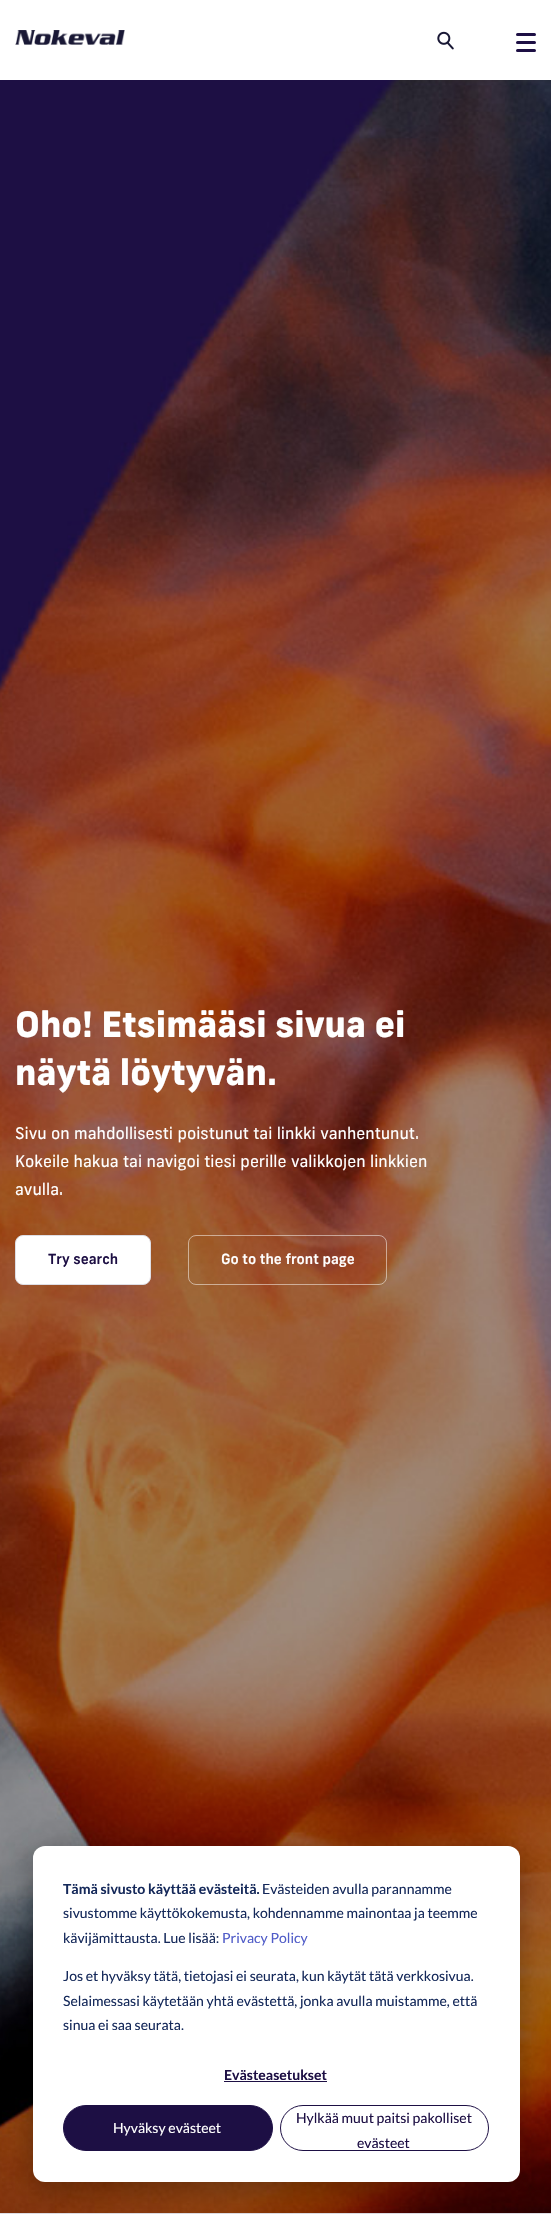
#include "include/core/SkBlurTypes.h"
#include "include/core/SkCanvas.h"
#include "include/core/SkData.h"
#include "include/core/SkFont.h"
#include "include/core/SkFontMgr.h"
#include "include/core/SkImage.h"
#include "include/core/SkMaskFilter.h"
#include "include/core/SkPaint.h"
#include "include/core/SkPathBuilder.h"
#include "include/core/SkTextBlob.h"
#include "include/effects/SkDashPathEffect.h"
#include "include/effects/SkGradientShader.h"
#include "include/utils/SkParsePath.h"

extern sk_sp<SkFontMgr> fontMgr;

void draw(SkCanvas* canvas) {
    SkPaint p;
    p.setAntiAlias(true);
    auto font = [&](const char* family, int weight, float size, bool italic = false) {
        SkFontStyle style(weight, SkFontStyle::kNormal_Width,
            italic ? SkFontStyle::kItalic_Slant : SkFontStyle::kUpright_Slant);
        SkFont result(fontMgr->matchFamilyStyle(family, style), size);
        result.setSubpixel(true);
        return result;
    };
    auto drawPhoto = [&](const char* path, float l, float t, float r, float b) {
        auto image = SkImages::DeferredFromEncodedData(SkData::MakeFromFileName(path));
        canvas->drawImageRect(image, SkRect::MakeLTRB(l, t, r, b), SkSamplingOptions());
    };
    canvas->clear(0xFFDEDEE5);
    p.setColor(0xFFFFFFFF);
    canvas->drawRect(SkRect::MakeLTRB(0, 0, 551, 80), p);
    drawPhoto("media/1.png", 15, 30, 125, 45);
    drawPhoto("media/2.png", 437, 31, 454, 50);
    p.setColor(0xFF1D0F44);
    canvas->drawRoundRect(SkRect::MakeLTRB(516, 41, 536, 44), 1.5f, 1.5f, p);
    canvas->drawRoundRect(SkRect::MakeLTRB(516, 33, 536, 36), 1.5f, 1.5f, p);
    canvas->drawRoundRect(SkRect::MakeLTRB(516, 49, 536, 52), 1.5f, 1.5f, p);
    drawPhoto("media/3.png", 0, 80, 551, 2213);
    auto font1 = font("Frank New", 800, 35);
    p.setColor(0xFFFFFFFF);
    canvas->drawString("Oho! Etsimääsi sivua ei", 15, 1037, font1, p);
    canvas->drawString("näytä löytyvän.", 15, 1085, font1, p);
    auto font2 = font("Frank New", 400, 16);
    {
        const struct { const char* s; float x, y; } items[] = {
            {"Sivu on mahdollisesti poistunut tai linkki vanhentunut.", 15, 1139},
            {"Kokeile hakua tai navigoi tiesi perille valikkojen linkkien", 15, 1167},
            {"avulla.", 15, 1195},
        };
        for (auto [s, x, y] : items) {
            canvas->drawString(s, x, y, font2, p);
        }
    }
    canvas->drawRoundRect(SkRect::MakeLTRB(15.5f, 1235.5f, 150.5f, 1284.5f), 7.5f, 7.5f, p);
    p.setStyle(SkPaint::kStroke_Style);
    p.setStrokeWidth(1);
    p.setColor(0xFFDEDEE5);
    canvas->drawRoundRect(SkRect::MakeLTRB(15.5f, 1235.5f, 150.5f, 1284.5f), 7.5f, 7.5f, p);
    auto font3 = font("Frank New", 500, 14);
    p.setStyle(SkPaint::kFill_Style);
    p.setColor(0xFF1D0F44);
    canvas->drawString("Try search", 48, 1264, font3, p);
    p.setStyle(SkPaint::kStroke_Style);
    p.setColor(0x80FFFFFF);
    canvas->drawRoundRect(SkRect::MakeLTRB(188.5f, 1235.5f, 386.5f, 1284.5f), 7.5f, 7.5f, p);
    p.setStyle(SkPaint::kFill_Style);
    p.setColor(0xFFFFFFFF);
    canvas->drawString("Go to the front page", 221, 1264, font3, p);
    p.setColor(0x47000000);
    p.setMaskFilter(SkMaskFilter::MakeBlur(kNormal_SkBlurStyle, 14));
    canvas->drawRoundRect(SkRect::MakeLTRB(33, 1854, 520, 2190), 12, 12, p);
    p.setMaskFilter(nullptr);
    p.setColor(0xFFFFFFFF);
    canvas->drawRoundRect(SkRect::MakeLTRB(33, 1846, 520, 2182), 12, 12, p);
    auto font4 = font("Lato", 700, 14);
    p.setColor(0xFF15295A);
    canvas->drawString("Tämä sivusto käyttää evästeitä.", 63, 1894, font4, p);
    auto font5 = font("Lato", 400, 14);
    {
        const struct { const char* s; float x, y; } items[] = {
            {"Evästeiden avulla parannamme", 262, 1894},
            {"sivustomme käyttökokemusta, kohdennamme mainontaa ja teemme", 63, 1918},
            {"kävijämittausta. Lue lisää:", 63, 1943},
        };
        for (auto [s, x, y] : items) {
            canvas->drawString(s, x, y, font5, p);
        }
    }
    p.setColor(0xFF505CC8);
    canvas->drawString("Privacy Policy", 222, 1943, font5, p);
    p.setColor(0xFF15295A);
    {
        const struct { const char* s; float x, y; } items[] = {
            {"Jos et hyväksy tätä, tietojasi ei seurata, kun käytät tätä verkkosivua.", 63, 1981},
            {"Selaimessasi käytetään yhtä evästettä, jonka avulla muistamme, että", 63, 2006},
            {"sinua ei saa seurata.", 63, 2030},
        };
        for (auto [s, x, y] : items) {
            canvas->drawString(s, x, y, font5, p);
        }
    }
    p.setColor(0xFF1D0F44);
    canvas->drawString("Evästeasetukset", 224, 2080, font4, p);
    canvas->drawRect(SkRect::MakeLTRB(224, 2081, 327, 2082), p);
    canvas->drawRoundRect(SkRect::MakeLTRB(63.5f, 2105.5f, 272.5f, 2150.5f), 22.5f, 22.5f, p);
    p.setStyle(SkPaint::kStroke_Style);
    canvas->drawRoundRect(SkRect::MakeLTRB(63.5f, 2105.5f, 272.5f, 2150.5f), 22.5f, 22.5f, p);
    p.setStyle(SkPaint::kFill_Style);
    p.setColor(0xFFFFFFFF);
    canvas->drawString("Hyväksy evästeet", 113, 2133, font5, p);
    p.setStyle(SkPaint::kStroke_Style);
    p.setColor(0xFF1D0F44);
    canvas->drawRoundRect(SkRect::MakeLTRB(280.5f, 2105.5f, 488.5f, 2150.5f), 22.5f, 22.5f, p);
    p.setStyle(SkPaint::kFill_Style);
    canvas->drawString("Hylkää muut paitsi pakolliset", 296, 2123, font5, p);
    canvas->drawString("evästeet", 357, 2148, font5, p);
}
